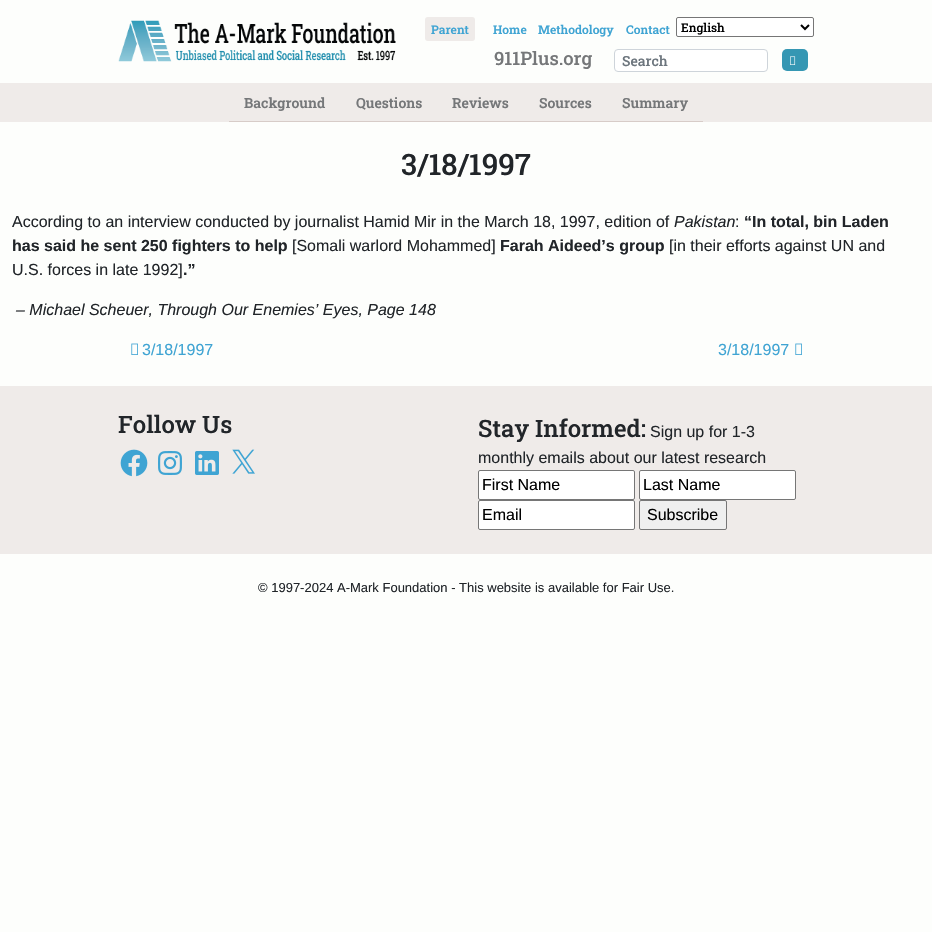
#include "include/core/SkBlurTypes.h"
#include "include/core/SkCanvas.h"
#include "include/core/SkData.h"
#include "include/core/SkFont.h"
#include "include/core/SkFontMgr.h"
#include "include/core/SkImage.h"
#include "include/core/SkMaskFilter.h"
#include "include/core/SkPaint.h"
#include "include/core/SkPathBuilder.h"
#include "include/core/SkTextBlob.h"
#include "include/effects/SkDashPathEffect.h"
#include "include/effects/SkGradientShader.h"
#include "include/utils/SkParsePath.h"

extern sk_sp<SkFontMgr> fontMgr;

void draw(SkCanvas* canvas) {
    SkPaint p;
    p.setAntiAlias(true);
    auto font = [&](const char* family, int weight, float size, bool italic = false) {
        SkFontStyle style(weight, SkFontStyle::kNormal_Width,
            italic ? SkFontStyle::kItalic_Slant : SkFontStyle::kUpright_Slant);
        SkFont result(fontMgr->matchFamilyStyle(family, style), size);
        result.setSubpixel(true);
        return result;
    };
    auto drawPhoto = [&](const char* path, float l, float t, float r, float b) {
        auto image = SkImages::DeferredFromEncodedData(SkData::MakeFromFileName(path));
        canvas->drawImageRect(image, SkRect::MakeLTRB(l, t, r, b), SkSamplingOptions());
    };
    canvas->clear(0xFFFDFEFC);
    drawPhoto("media/1.png", 118, 20, 396, 62);
    p.setColor(0xFFEFEBE9);
    canvas->drawRoundRect(SkRect::MakeLTRB(425, 17, 475, 41), 3, 3, p);
    auto font1 = font("Roboto Slab", 600, 12);
    p.setColor(0xFF3FA4D3);
    {
        const struct { const char* s; float x, y; } items[] = {
            {"Parent", 431, 34},
            {"Home", 493, 34},
            {"Methodology", 538, 34},
            {"Contact", 626, 34},
        };
        for (auto [s, x, y] : items) {
            canvas->drawString(s, x, y, font1, p);
        }
    }
    p.setColor(0xFFFFFFFF);
    canvas->drawRoundRect(SkRect::MakeLTRB(676.5f, 17.5f, 813.5f, 36.5f), 1.5f, 1.5f, p);
    p.setStyle(SkPaint::kStroke_Style);
    p.setStrokeWidth(1);
    p.setColor(0xFF767676);
    canvas->drawRoundRect(SkRect::MakeLTRB(676.5f, 17.5f, 813.5f, 36.5f), 1.5f, 1.5f, p);
    p.setStrokeWidth(2);
    p.setColor(0xFF000000);
    canvas->drawPath(SkPathBuilder().moveTo(801, 25).lineTo(805, 29).lineTo(809, 25).detach(), p);
    auto font2 = font("Roboto Slab", 500, 12);
    p.setStyle(SkPaint::kFill_Style);
    canvas->drawString("English", 681, 32, font2, p);
    auto font3 = font("Roboto Slab", 500, 18.5f);
    p.setColor(0xFF757779);
    canvas->drawString("911Plus.org", 494, 65, font3, p);
    p.setColor(0xFFFFFFFF);
    canvas->drawRoundRect(SkRect::MakeLTRB(614.5f, 49.5f, 767.5f, 71.5f), 3.5f, 3.5f, p);
    p.setStyle(SkPaint::kStroke_Style);
    p.setStrokeWidth(1);
    p.setColor(0xFFCED4DA);
    canvas->drawRoundRect(SkRect::MakeLTRB(614.5f, 49.5f, 767.5f, 71.5f), 3.5f, 3.5f, p);
    auto font4 = font("Roboto Slab", 500, 14);
    p.setStyle(SkPaint::kFill_Style);
    p.setColor(0xFF6C757D);
    canvas->drawString("Search", 622, 66, font4, p);
    p.setColor(0xFF3597B3);
    canvas->drawRoundRect(SkRect::MakeLTRB(782, 49, 808, 71), 5, 5, p);
    drawPhoto("media/2.png", 790, 56, 796, 65);
    p.setColor(0xFFEFEBE9);
    canvas->drawRect(SkRect::MakeLTRB(0, 83, 932, 122), p);
    p.setColor(0xFFD7CCC8);
    canvas->drawRect(SkRect::MakeLTRB(229, 121, 703, 122), p);
    auto font5 = font("Roboto Slab", 600, 14);
    p.setColor(0xFF757779);
    {
        const struct { const char* s; float x, y; } items[] = {
            {"Background", 244, 108},
            {"Questions", 356, 108},
            {"Reviews", 452, 108},
            {"Sources", 539, 108},
            {"Summary", 622, 108},
        };
        for (auto [s, x, y] : items) {
            canvas->drawString(s, x, y, font5, p);
        }
    }
    auto font6 = font("Roboto Slab", 500, 29.5f);
    p.setColor(0xFF212529);
    canvas->drawString("3/18/1997", 401, 175, font6, p);
    auto font7 = font("Liberation Sans", 400, 16);
    canvas->drawString("According to an interview conducted by journalist Hamid Mir in the March 18, 1997, edition of", 12, 227, font7, p);
    auto font8 = font("Liberation Sans", 400, 16, true);
    canvas->drawString("Pakistan", 674, 227, font8, p);
    canvas->drawString(":", 735, 227, font7, p);
    auto font9 = font("Liberation Sans", 700, 16);
    canvas->drawString("“In total, bin Laden", 744, 227, font9, p);
    canvas->drawString("has said he sent 250 fighters to help", 12, 251, font9, p);
    canvas->drawString("[Somali warlord Mohammed]", 292, 251, font7, p);
    canvas->drawString("Farah Aideed’s group", 500, 251, font9, p);
    canvas->drawString("[in their efforts against UN and", 669, 251, font7, p);
    canvas->drawString("U.S. forces in late 1992]", 12, 275, font7, p);
    canvas->drawString(".”", 183, 275, font9, p);
    canvas->drawString("– Michael Scheuer, Through Our Enemies’ Eyes, Page 148", 16, 315, font8, p);
    drawPhoto("media/3.png", 131, 343, 138, 355);
    p.setColor(0xFF3FA4D3);
    canvas->drawString("3/18/1997", 142, 355, font7, p);
    canvas->drawString("3/18/1997", 718, 355, font7, p);
    drawPhoto("media/3.png", 795, 343, 802, 355);
    p.setColor(0xFFEFEBE9);
    canvas->drawRect(SkRect::MakeLTRB(0, 386, 932, 554), p);
    auto font10 = font("Roboto Slab", 500, 24);
    p.setColor(0xFF212529);
    canvas->drawString("Follow Us", 118, 433, font10, p);
    drawPhoto("media/4.png", 120, 449, 148, 477);
    drawPhoto("media/5.png", 158, 451, 182, 475);
    drawPhoto("media/6.png", 195, 451, 219, 475);
    drawPhoto("media/7.png", 232, 449, 255, 474);
    canvas->drawString("Stay Informed:", 478, 437, font10, p);
    canvas->drawString("Sign up for 1-3", 650, 437, font7, p);
    canvas->drawString("monthly emails about our latest research", 478, 463, font7, p);
    p.setColor(0xFFFFFFFF);
    canvas->drawRoundRect(SkRect::MakeLTRB(478.5f, 470.5f, 634.5f, 499.5f), 1.5f, 1.5f, p);
    p.setStyle(SkPaint::kStroke_Style);
    p.setColor(0xFF767676);
    canvas->drawRoundRect(SkRect::MakeLTRB(478.5f, 470.5f, 634.5f, 499.5f), 1.5f, 1.5f, p);
    p.setStyle(SkPaint::kFill_Style);
    p.setColor(0xFF000000);
    canvas->drawString("First Name", 482, 490, font7, p);
    p.setColor(0xFFFFFFFF);
    canvas->drawRoundRect(SkRect::MakeLTRB(639.5f, 470.5f, 795.5f, 499.5f), 1.5f, 1.5f, p);
    p.setStyle(SkPaint::kStroke_Style);
    p.setColor(0xFF767676);
    canvas->drawRoundRect(SkRect::MakeLTRB(639.5f, 470.5f, 795.5f, 499.5f), 1.5f, 1.5f, p);
    p.setStyle(SkPaint::kFill_Style);
    p.setColor(0xFF000000);
    canvas->drawString("Last Name", 643, 490, font7, p);
    p.setColor(0xFFFFFFFF);
    canvas->drawRoundRect(SkRect::MakeLTRB(478.5f, 500.5f, 634.5f, 529.5f), 1.5f, 1.5f, p);
    p.setStyle(SkPaint::kStroke_Style);
    p.setColor(0xFF767676);
    canvas->drawRoundRect(SkRect::MakeLTRB(478.5f, 500.5f, 634.5f, 529.5f), 1.5f, 1.5f, p);
    p.setStyle(SkPaint::kFill_Style);
    p.setColor(0xFF000000);
    canvas->drawString("Email", 482, 520, font7, p);
    p.setColor(0xFFEFEFEF);
    canvas->drawRoundRect(SkRect::MakeLTRB(639.5f, 500.5f, 726.5f, 529.5f), 1.5f, 1.5f, p);
    p.setStyle(SkPaint::kStroke_Style);
    p.setColor(0xFF767676);
    canvas->drawRoundRect(SkRect::MakeLTRB(639.5f, 500.5f, 726.5f, 529.5f), 1.5f, 1.5f, p);
    p.setStyle(SkPaint::kFill_Style);
    p.setColor(0xFF000000);
    canvas->drawString("Subscribe", 647, 520, font7, p);
    auto font11 = font("Liberation Sans", 400, 13);
    p.setColor(0xFF212529);
    canvas->drawString("© 1997-2024 A-Mark Foundation - This website is available for Fair Use.", 258, 592, font11, p);
}
